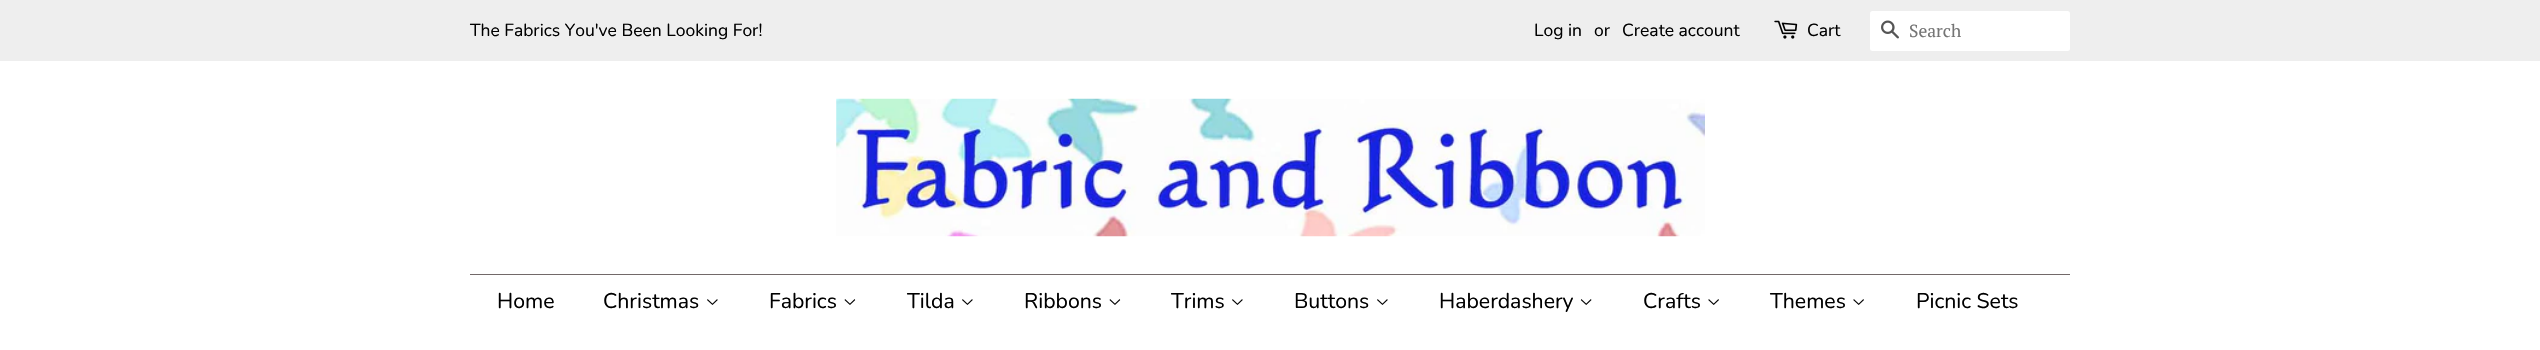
#include "include/core/SkBlurTypes.h"
#include "include/core/SkCanvas.h"
#include "include/core/SkData.h"
#include "include/core/SkFont.h"
#include "include/core/SkFontMgr.h"
#include "include/core/SkImage.h"
#include "include/core/SkMaskFilter.h"
#include "include/core/SkPaint.h"
#include "include/core/SkPathBuilder.h"
#include "include/core/SkTextBlob.h"
#include "include/effects/SkDashPathEffect.h"
#include "include/effects/SkGradientShader.h"
#include "include/utils/SkParsePath.h"

extern sk_sp<SkFontMgr> fontMgr;

void draw(SkCanvas* canvas) {
    SkPaint p;
    p.setAntiAlias(true);
    auto font = [&](const char* family, int weight, float size, bool italic = false) {
        SkFontStyle style(weight, SkFontStyle::kNormal_Width,
            italic ? SkFontStyle::kItalic_Slant : SkFontStyle::kUpright_Slant);
        SkFont result(fontMgr->matchFamilyStyle(family, style), size);
        result.setSubpixel(true);
        return result;
    };
    auto drawPhoto = [&](const char* path, float l, float t, float r, float b) {
        auto image = SkImages::DeferredFromEncodedData(SkData::MakeFromFileName(path));
        canvas->drawImageRect(image, SkRect::MakeLTRB(l, t, r, b), SkSamplingOptions());
    };
    canvas->clear(0xFFFFFFFF);
    p.setColor(0xFFEEEEEE);
    canvas->drawRect(SkRect::MakeLTRB(0, 0, 2540, 61), p);
    auto font1 = font("Nunito", 400, 17.5f);
    p.setColor(0xFF000000);
    {
        const struct { const char* s; float x, y; } items[] = {
            {"The Fabrics You've Been Looking For!", 470, 36},
            {"Log in", 1534, 36},
            {"or", 1594, 36},
            {"Create account", 1622, 36},
        };
        for (auto [s, x, y] : items) {
            canvas->drawString(s, x, y, font1, p);
        }
    }
    drawPhoto("media/1.png", 1774, 20, 1798, 39);
    canvas->drawString("Cart", 1807, 36, font1, p);
    p.setColor(0xFFFFFFFF);
    canvas->drawRoundRect(SkRect::MakeLTRB(1870, 11, 2070, 51), 2.5f, 2.5f, p);
    drawPhoto("media/2.png", 1881, 20, 1899, 39);
    auto font2 = font("PT Serif", 400, 17.5f);
    p.setColor(0xFF757575);
    canvas->drawString("Search", 1909, 37, font2, p);
    drawPhoto("media/3.png", 836, 98, 1705, 237);
    p.setColor(0xFF726969);
    canvas->drawRect(SkRect::MakeLTRB(470, 274, 2070, 275), p);
    auto font3 = font("Nunito", 400, 21.25f);
    p.setColor(0xFF000000);
    canvas->drawString("Home", 497, 308, font3, p);
    canvas->drawString("Christmas", 603, 308, font3, p);
    drawPhoto("media/4.png", 707, 299, 718, 305);
    canvas->drawString("Fabrics", 769, 308, font3, p);
    drawPhoto("media/5.png", 844, 299, 856, 305);
    canvas->drawString("Tilda", 907, 308, font3, p);
    drawPhoto("media/4.png", 962, 299, 973, 305);
    canvas->drawString("Ribbons", 1024, 308, font3, p);
    drawPhoto("media/5.png", 1109, 299, 1121, 305);
    canvas->drawString("Trims", 1171, 308, font3, p);
    drawPhoto("media/4.png", 1232, 299, 1243, 305);
    canvas->drawString("Buttons", 1294, 308, font3, p);
    drawPhoto("media/4.png", 1377, 299, 1388, 305);
    canvas->drawString("Haberdashery", 1439, 308, font3, p);
    drawPhoto("media/6.png", 1580, 299, 1592, 305);
    canvas->drawString("Crafts", 1643, 308, font3, p);
    drawPhoto("media/7.png", 1708, 299, 1719, 305);
    canvas->drawString("Themes", 1770, 308, font3, p);
    drawPhoto("media/7.png", 1853, 299, 1864, 305);
    canvas->drawString("Picnic Sets", 1916, 308, font3, p);
}
